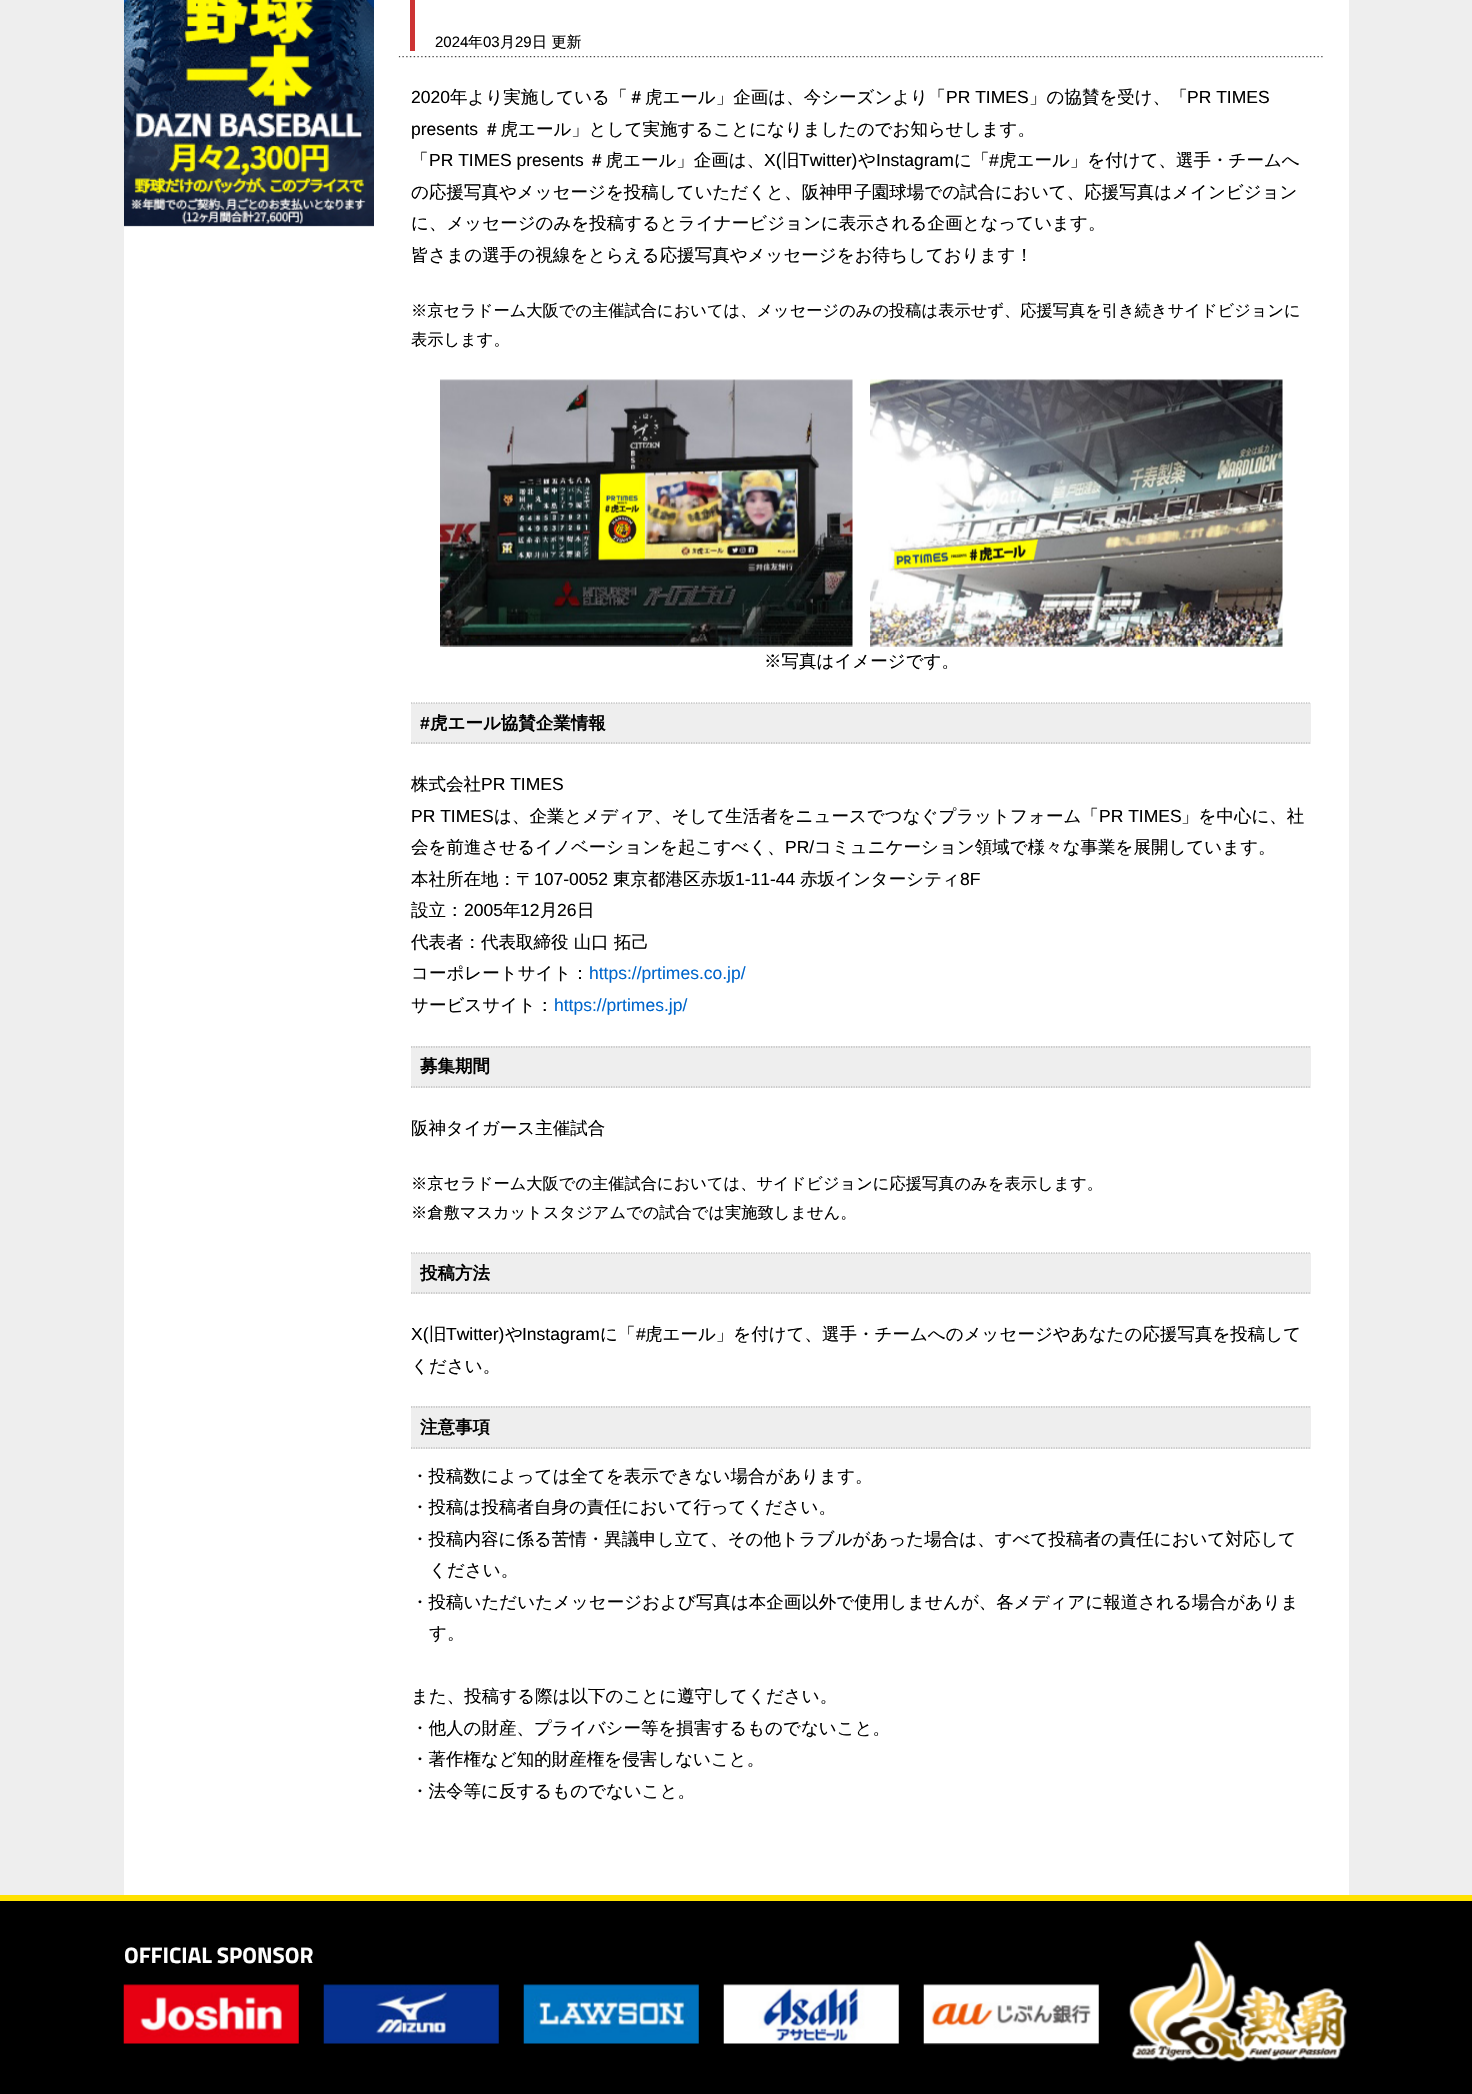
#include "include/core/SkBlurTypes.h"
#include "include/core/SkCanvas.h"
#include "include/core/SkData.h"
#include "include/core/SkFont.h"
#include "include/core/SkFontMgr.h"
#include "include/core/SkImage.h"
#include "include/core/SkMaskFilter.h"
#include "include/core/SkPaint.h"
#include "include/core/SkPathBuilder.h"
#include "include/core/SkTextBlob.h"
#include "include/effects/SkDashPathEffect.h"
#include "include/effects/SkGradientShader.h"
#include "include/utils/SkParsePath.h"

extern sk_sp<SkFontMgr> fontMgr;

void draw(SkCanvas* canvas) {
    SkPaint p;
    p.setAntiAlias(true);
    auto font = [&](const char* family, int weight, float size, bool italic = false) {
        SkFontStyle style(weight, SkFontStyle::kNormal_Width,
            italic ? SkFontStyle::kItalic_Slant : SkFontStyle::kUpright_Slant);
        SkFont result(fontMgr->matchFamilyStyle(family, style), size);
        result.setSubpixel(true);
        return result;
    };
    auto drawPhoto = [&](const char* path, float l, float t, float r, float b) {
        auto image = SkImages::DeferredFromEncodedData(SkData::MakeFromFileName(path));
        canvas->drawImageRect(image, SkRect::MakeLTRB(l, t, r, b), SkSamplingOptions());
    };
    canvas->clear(0xFFEEEEEE);
    p.setColor(0xFFFFFFFF);
    canvas->drawRect(SkRect::MakeLTRB(124, 0, 1349, 1895), p);
    drawPhoto("media/1.png", 124, 0, 374, 227);
    p.setColor(0xFFCC3333);
    canvas->drawRect(SkRect::MakeLTRB(410, 0, 415, 51), p);
    auto font1 = font("Liberation Sans", 400, 15);
    p.setColor(0xFF000000);
    canvas->drawString("2024", 435, 47, font1, p);
    auto font2 = font("WenQuanYi Zen Hei", 500, 15);
    canvas->drawString("年", 468, 47, font2, p);
    canvas->drawString("03", 483, 47, font1, p);
    canvas->drawString("月", 500, 47, font2, p);
    canvas->drawString("29", 515, 47, font1, p);
    canvas->drawString("日 更新", 532, 47, font2, p);
    drawPhoto("media/2.png", 398, 56, 1323, 58);
    auto font3 = font("Liberation Sans", 400, 17.5f);
    canvas->drawString("2020", 411, 103, font3, p);
    auto font4 = font("WenQuanYi Zen Hei", 500, 17.5f);
    canvas->drawString("年より実施している「＃虎エール」企画は、今シーズンより「", 450, 103, font4, p);
    canvas->drawString("PR TIMES", 946, 103, font3, p);
    canvas->drawString("」の協賛を受け、「", 1029, 103, font4, p);
    canvas->drawString("PR TIMES", 1187, 103, font3, p);
    canvas->drawString("presents", 411, 135, font3, p);
    canvas->drawString("＃虎エール」として実施することになりましたのでお知らせします。", 483, 135, font4, p);
    canvas->drawString("「", 411, 166, font4, p);
    canvas->drawString("PR TIMES presents", 429, 166, font3, p);
    canvas->drawString("＃虎エール」企画は、", 588, 166, font4, p);
    canvas->drawString("X(", 764, 166, font3, p);
    canvas->drawString("旧", 782, 166, font4, p);
    canvas->drawString("Twitter)", 799, 166, font3, p);
    canvas->drawString("や", 858, 166, font4, p);
    canvas->drawString("Instagram", 876, 166, font3, p);
    canvas->drawString("に「", 954, 166, font4, p);
    canvas->drawString("#", 989, 166, font3, p);
    {
        const struct { const char* s; float x, y; } items[] = {
            {"虎エール」を付けて、選手・チームへ", 999, 166},
            {"の応援写真やメッセージを投稿していただくと、阪神甲子園球場での試合において、応援写真はメインビジョン", 411, 198},
            {"に、メッセージのみを投稿するとライナービジョンに表示される企画となっています。", 411, 229},
            {"皆さまの選手の視線をとらえる応援写真やメッセージをお待ちしております！", 411, 261},
        };
        for (auto [s, x, y] : items) {
            canvas->drawString(s, x, y, font4, p);
        }
    }
    auto font5 = font("WenQuanYi Zen Hei", 500, 16.25f);
    canvas->drawString("※京セラドーム大阪での主催試合においては、メッセージのみの投稿は表示せず、応援写真を引き続きサイドビジョンに", 411, 316, font5, p);
    canvas->drawString("表示します。", 411, 345, font5, p);
    drawPhoto("media/3.png", 440, 379, 853, 647);
    drawPhoto("media/4.png", 870, 379, 1283, 647);
    canvas->drawString("※写真はイメージです。", 764, 667, font4, p);
    p.setColor(0xFFEEEEEE);
    canvas->drawRect(SkRect::MakeLTRB(411, 703, 1311, 744), p);
    p.setStyle(SkPaint::kStroke_Style);
    p.setStrokeWidth(1.2f);
    p.setColor(0xFFAAAAAA);
    p.setPathEffect(SkDashPathEffect::Make({{1.25f, 1.25f}}, 0));
    canvas->drawPath(SkPathBuilder().moveTo(411, 703).lineTo(1311, 703).detach(), p);
    p.setPathEffect(nullptr);
    p.setPathEffect(SkDashPathEffect::Make({{1.25f, 1.25f}}, 0));
    canvas->drawPath(SkPathBuilder().moveTo(411, 743).lineTo(1311, 743).detach(), p);
    p.setPathEffect(nullptr);
    auto font6 = font("Liberation Sans", 700, 17.5f);
    p.setStyle(SkPaint::kFill_Style);
    p.setColor(0xFF000000);
    canvas->drawString("#", 420, 729, font6, p);
    auto font7 = font("WenQuanYi Zen Hei", 700, 17.5f);
    canvas->drawString("虎エール協賛企業情報", 430, 729, font7, p);
    canvas->drawString("株式会社", 411, 790, font4, p);
    canvas->drawString("PR TIMES", 481, 790, font3, p);
    canvas->drawString("PR TIMES", 411, 822, font3, p);
    canvas->drawString("は、企業とメディア、そして生活者をニュースでつなぐプラットフォーム「", 494, 822, font4, p);
    canvas->drawString("PR TIMES", 1099, 822, font3, p);
    canvas->drawString("」を中心に、社", 1181, 822, font4, p);
    canvas->drawString("会を前進させるイノベーションを起こすべく、", 411, 853, font4, p);
    canvas->drawString("PR/", 785, 853, font3, p);
    canvas->drawString("コミュニケーション領域で様々な事業を展開しています。", 814, 853, font4, p);
    canvas->drawString("本社所在地：〒", 411, 885, font4, p);
    canvas->drawString("107-0052", 534, 885, font3, p);
    canvas->drawString("東京都港区赤坂", 613, 885, font4, p);
    canvas->drawString("1-11-44", 735, 885, font3, p);
    canvas->drawString("赤坂インターシティ", 800, 885, font4, p);
    canvas->drawString("8F", 960, 885, font3, p);
    canvas->drawString("設立：", 411, 916, font4, p);
    canvas->drawString("2005", 464, 916, font3, p);
    canvas->drawString("年", 503, 916, font4, p);
    canvas->drawString("12", 520, 916, font3, p);
    canvas->drawString("月", 540, 916, font4, p);
    canvas->drawString("26", 557, 916, font3, p);
    {
        const struct { const char* s; float x, y; } items[] = {
            {"日", 577, 916},
            {"代表者：代表取締役 山口 拓己", 411, 948},
            {"コーポレートサイト：", 411, 979},
        };
        for (auto [s, x, y] : items) {
            canvas->drawString(s, x, y, font4, p);
        }
    }
    p.setColor(0xFF0066CC);
    canvas->drawString("https://prtimes.co.jp/", 589, 979, font3, p);
    p.setColor(0xFF000000);
    canvas->drawString("サービスサイト：", 411, 1011, font4, p);
    p.setColor(0xFF0066CC);
    canvas->drawString("https://prtimes.jp/", 554, 1011, font3, p);
    p.setColor(0xFFEEEEEE);
    canvas->drawRect(SkRect::MakeLTRB(411, 1046, 1311, 1088), p);
    p.setStyle(SkPaint::kStroke_Style);
    p.setColor(0xFFAAAAAA);
    p.setPathEffect(SkDashPathEffect::Make({{1.25f, 1.25f}}, 0));
    canvas->drawPath(SkPathBuilder().moveTo(411, 1047).lineTo(1311, 1047).detach(), p);
    p.setPathEffect(nullptr);
    p.setPathEffect(SkDashPathEffect::Make({{1.25f, 1.25f}}, 0));
    canvas->drawPath(SkPathBuilder().moveTo(411, 1087).lineTo(1311, 1087).detach(), p);
    p.setPathEffect(nullptr);
    p.setStyle(SkPaint::kFill_Style);
    p.setColor(0xFF000000);
    canvas->drawString("募集期間", 420, 1072, font7, p);
    canvas->drawString("阪神タイガース主催試合", 411, 1134, font4, p);
    canvas->drawString("※京セラドーム大阪での主催試合においては、サイドビジョンに応援写真のみを表示します。", 411, 1189, font5, p);
    canvas->drawString("※倉敷マスカットスタジアムでの試合では実施致しません。", 411, 1218, font5, p);
    p.setColor(0xFFEEEEEE);
    canvas->drawRect(SkRect::MakeLTRB(411, 1253, 1311, 1294), p);
    p.setStyle(SkPaint::kStroke_Style);
    p.setColor(0xFFAAAAAA);
    p.setPathEffect(SkDashPathEffect::Make({{1.25f, 1.25f}}, 0));
    canvas->drawPath(SkPathBuilder().moveTo(411, 1253).lineTo(1311, 1253).detach(), p);
    p.setPathEffect(nullptr);
    p.setPathEffect(SkDashPathEffect::Make({{1.25f, 1.25f}}, 0));
    canvas->drawPath(SkPathBuilder().moveTo(411, 1293).lineTo(1311, 1293).detach(), p);
    p.setPathEffect(nullptr);
    p.setStyle(SkPaint::kFill_Style);
    p.setColor(0xFF000000);
    canvas->drawString("投稿方法", 420, 1279, font7, p);
    canvas->drawString("X(", 411, 1340, font3, p);
    canvas->drawString("旧", 429, 1340, font4, p);
    canvas->drawString("Twitter)", 446, 1340, font3, p);
    canvas->drawString("や", 505, 1340, font4, p);
    canvas->drawString("Instagram", 522, 1340, font3, p);
    canvas->drawString("に「", 600, 1340, font4, p);
    canvas->drawString("#", 636, 1340, font3, p);
    canvas->drawString("虎エール」を付けて、選手・チームへのメッセージやあなたの応援写真を投稿して", 645, 1340, font4, p);
    canvas->drawString("ください。", 411, 1372, font4, p);
    p.setColor(0xFFEEEEEE);
    canvas->drawRect(SkRect::MakeLTRB(411, 1406, 1311, 1449), p);
    p.setStyle(SkPaint::kStroke_Style);
    p.setColor(0xFFAAAAAA);
    p.setPathEffect(SkDashPathEffect::Make({{1.25f, 1.25f}}, 0));
    canvas->drawPath(SkPathBuilder().moveTo(411, 1407).lineTo(1311, 1407).detach(), p);
    p.setPathEffect(nullptr);
    p.setPathEffect(SkDashPathEffect::Make({{1.25f, 1.25f}}, 0));
    canvas->drawPath(SkPathBuilder().moveTo(411, 1448).lineTo(1311, 1448).detach(), p);
    p.setPathEffect(nullptr);
    p.setStyle(SkPaint::kFill_Style);
    p.setColor(0xFF000000);
    canvas->drawString("注意事項", 420, 1433, font7, p);
    {
        const struct { const char* s; float x, y; } items[] = {
            {"・投稿数によっては全てを表示できない場合があります。", 411, 1482},
            {"・投稿は投稿者自身の責任において行ってください。", 411, 1513},
            {"・投稿内容に係る苦情・異議申し立て、その他トラブルがあった場合は、すべて投稿者の責任において対応して", 411, 1545},
            {"ください。", 429, 1576},
            {"・投稿いただいたメッセージおよび写真は本企画以外で使用しませんが、各メディアに報道される場合がありま", 411, 1608},
            {"す。", 429, 1639},
            {"また、投稿する際は以下のことに遵守してください。", 411, 1702},
            {"・他人の財産、プライバシー等を損害するものでないこと。", 411, 1734},
            {"・著作権など知的財産権を侵害しないこと。", 411, 1765},
            {"・法令等に反するものでないこと。", 411, 1797},
        };
        for (auto [s, x, y] : items) {
            canvas->drawString(s, x, y, font4, p);
        }
    }
    canvas->drawRect(SkRect::MakeLTRB(0, 1901, 1472, 2094), p);
    p.setColor(0xFFFFE100);
    canvas->drawRect(SkRect::MakeLTRB(0, 1895, 1472, 1901), p);
    auto font8 = font("Titillium Web", 700, 22.5f);
    p.setColor(0xFFFFFFFF);
    canvas->drawString("OFFICIAL SPONSOR", 124, 1963, font8, p);
    drawPhoto("media/5.png", 123, 1984, 299, 2044);
    drawPhoto("media/6.png", 323, 1984, 499, 2044);
    drawPhoto("media/7.png", 523, 1984, 699, 2044);
    drawPhoto("media/8.png", 723, 1984, 899, 2044);
    drawPhoto("media/9.png", 923, 1984, 1099, 2045);
    drawPhoto("media/10.png", 1129, 1940, 1347, 2062);
}
